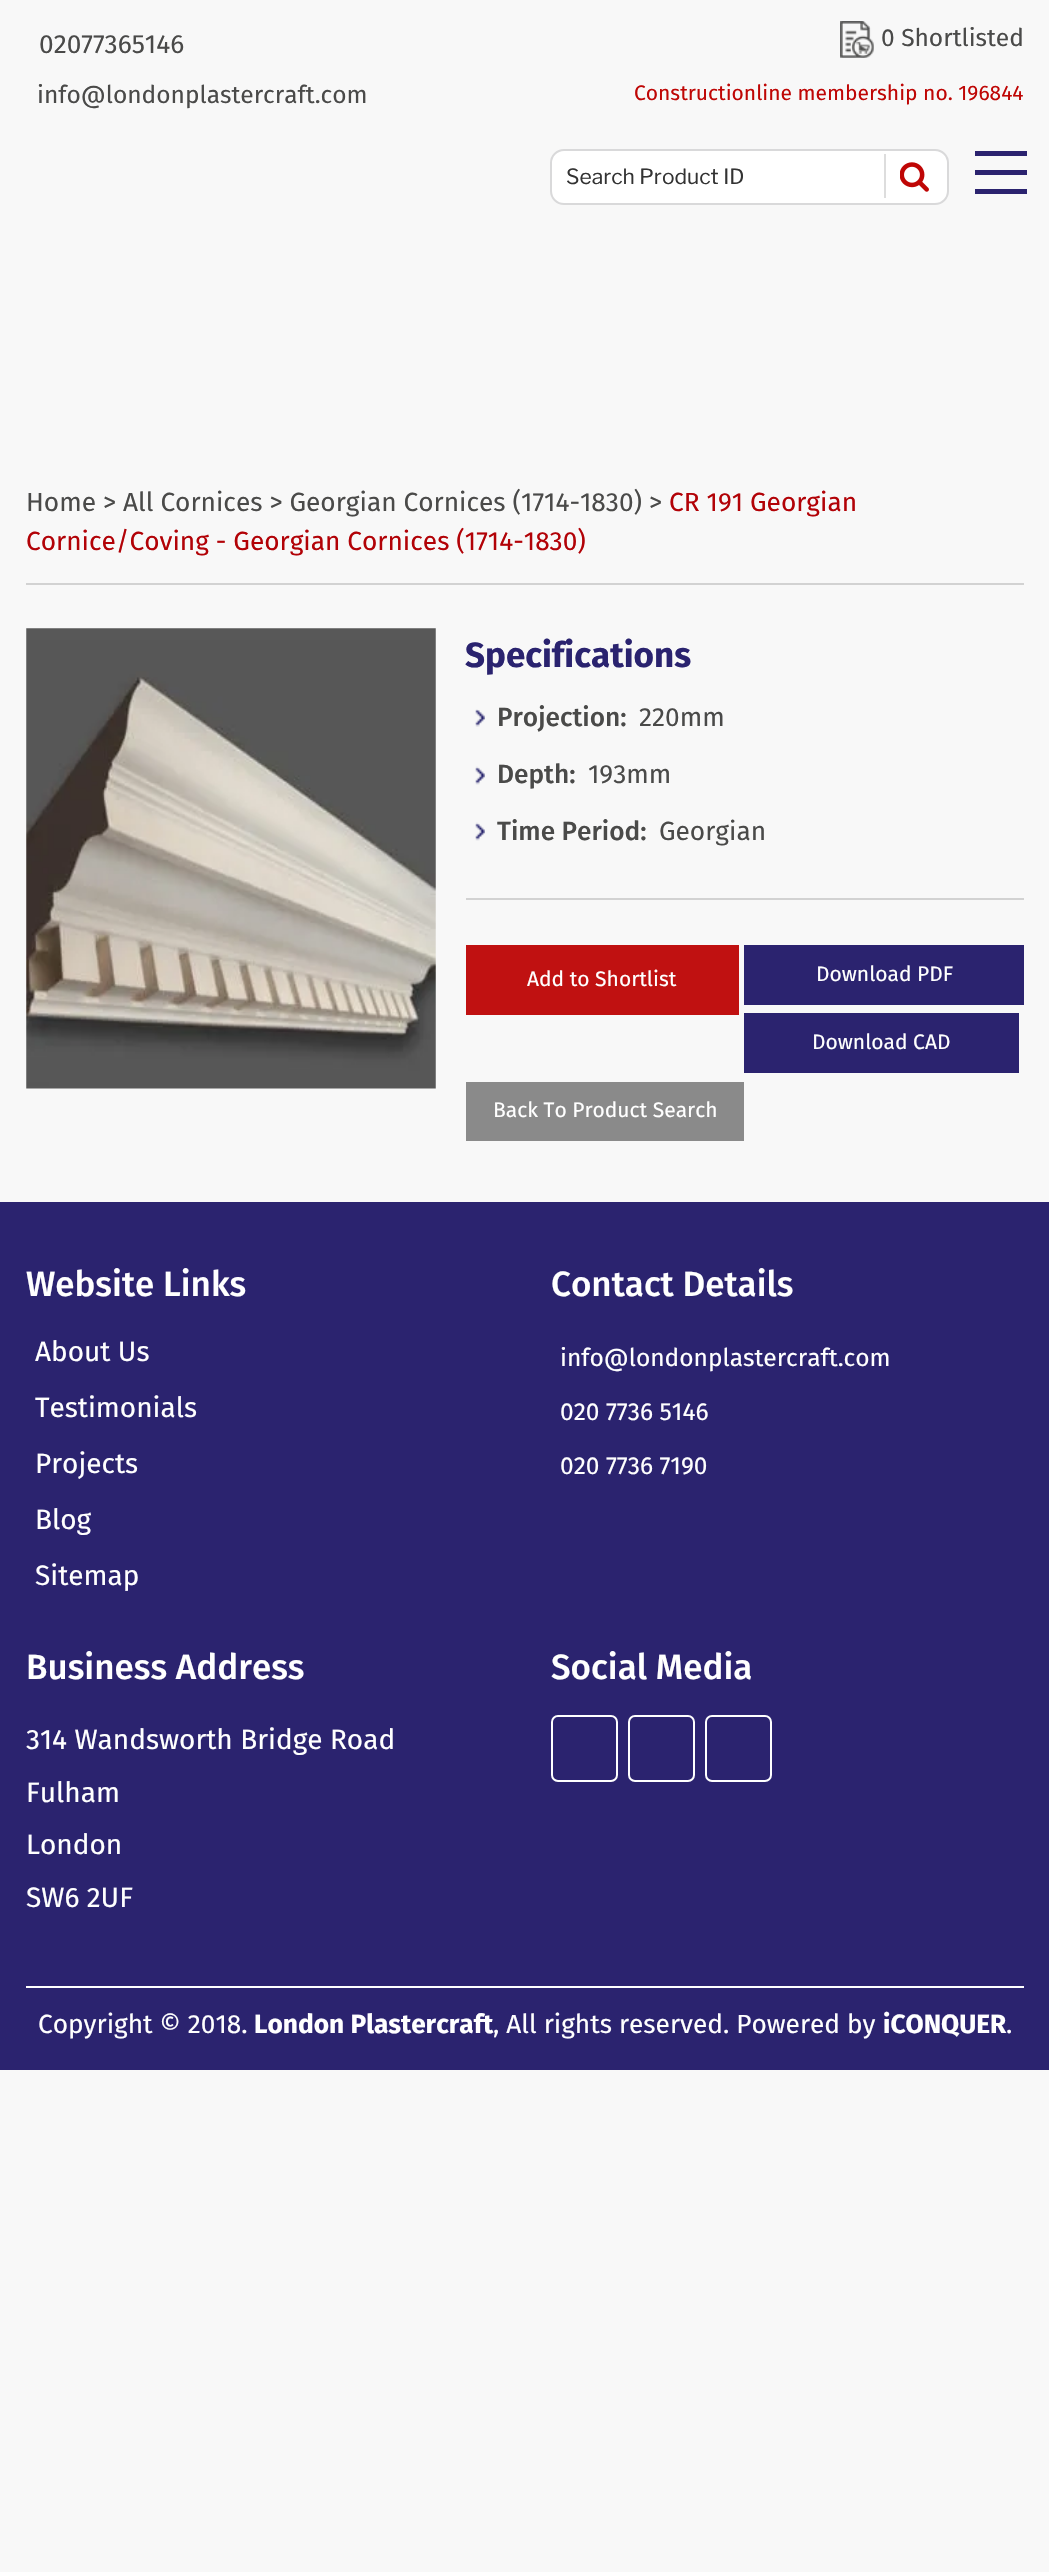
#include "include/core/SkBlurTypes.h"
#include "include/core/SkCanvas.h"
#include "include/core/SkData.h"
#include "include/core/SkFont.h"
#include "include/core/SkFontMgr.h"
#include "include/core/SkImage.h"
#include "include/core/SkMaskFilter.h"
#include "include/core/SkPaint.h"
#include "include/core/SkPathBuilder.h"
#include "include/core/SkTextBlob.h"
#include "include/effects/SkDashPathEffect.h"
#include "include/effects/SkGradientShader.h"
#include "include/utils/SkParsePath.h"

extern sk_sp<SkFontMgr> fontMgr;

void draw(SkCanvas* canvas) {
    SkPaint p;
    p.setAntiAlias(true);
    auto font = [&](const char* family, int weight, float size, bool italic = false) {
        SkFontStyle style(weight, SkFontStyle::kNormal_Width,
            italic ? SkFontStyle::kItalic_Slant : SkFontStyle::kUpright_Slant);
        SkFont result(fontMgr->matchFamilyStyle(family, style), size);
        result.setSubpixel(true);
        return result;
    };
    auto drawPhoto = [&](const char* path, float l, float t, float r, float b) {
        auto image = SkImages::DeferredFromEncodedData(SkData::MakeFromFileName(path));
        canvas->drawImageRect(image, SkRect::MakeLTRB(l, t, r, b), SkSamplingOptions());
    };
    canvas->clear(0xFFF8F8F8);
    auto font1 = font("Fira Sans", 400, 26.25f);
    p.setColor(0xFF4A4A49);
    canvas->drawString("02077365146", 39, 53, font1, p);
    auto font2 = font("Fira Sans", 400, 24.5f);
    canvas->drawString("info@londonplastercraft.com", 37, 103, font2, p);
    p.setColor(0xFFFFFFFF);
    canvas->drawRoundRect(SkRect::MakeLTRB(551, 150, 948, 204), 13, 13, p);
    p.setStyle(SkPaint::kStroke_Style);
    p.setStrokeWidth(2);
    p.setColor(0xFFD9D9DA);
    canvas->drawRoundRect(SkRect::MakeLTRB(551, 150, 948, 204), 13, 13, p);
    auto font3 = font("Libre Franklin", 400, 21);
    p.setStyle(SkPaint::kFill_Style);
    p.setColor(0xFF333333);
    canvas->drawString("Search Product ID", 566, 184, font3, p);
    p.setColor(0xFFDDDDDD);
    canvas->drawRect(SkRect::MakeLTRB(884, 154, 886, 198), p);
    drawPhoto("media/1.png", 900, 162, 929, 192);
    {
        const struct { float l, t, r, b; SkColor color; } items[] = {
            {975, 151, 1027, 156, 0xFF2B236F},
            {975, 170, 1027, 175, 0xFF2B236F},
            {975, 189, 1027, 194, 0xFF2B236F},
        };
        for (auto [l, t, r, b, color] : items) {
            p.setColor(color);
            canvas->drawRect(SkRect::MakeLTRB(l, t, r, b), p);
        }
    }
    drawPhoto("media/2.png", 840, 21, 874, 58);
    p.setColor(0xFF4A4A49);
    canvas->drawString("0 Shortlisted", 881, 46, font2, p);
    auto font4 = font("Fira Sans", 400, 21);
    p.setColor(0xFFBF0605);
    canvas->drawString("Constructionline membership no. 196844", 634, 100, font4, p);
    p.setColor(0xFFD2D2D2);
    canvas->drawRect(SkRect::MakeLTRB(26, 583, 1024, 585), p);
    p.setColor(0xFF4A4A49);
    canvas->drawString("Home > All Cornices > Georgian Cornices (1714-1830) >", 26, 511, font1, p);
    p.setColor(0xFFB20207);
    canvas->drawString("CR 191 Georgian", 669, 511, font1, p);
    canvas->drawString("Cornice/Coving - Georgian Cornices (1714-1830)", 26, 550, font1, p);
    drawPhoto("media/3.png", 26, 628, 436, 1089);
    auto font5 = font("Fira Sans", 700, 35);
    p.setColor(0xFF2A236F);
    canvas->drawString("Specifications", 465, 667, font5, p);
    drawPhoto("media/4.png", 475, 709, 485, 727);
    auto font6 = font("Fira Sans", 500, 26.25f);
    p.setColor(0xFF4A4A49);
    canvas->drawString("Projection:", 497, 726, font6, p);
    canvas->drawString("220mm", 639, 726, font1, p);
    drawPhoto("media/5.png", 475, 766, 485, 785);
    canvas->drawString("Depth:", 497, 783, font6, p);
    canvas->drawString("193mm", 588, 783, font1, p);
    drawPhoto("media/5.png", 475, 822, 485, 841);
    canvas->drawString("Time Period:", 497, 840, font6, p);
    canvas->drawString("Georgian", 659, 840, font1, p);
    p.setColor(0xFFD2D2D2);
    canvas->drawRect(SkRect::MakeLTRB(466, 898, 1024, 900), p);
    p.setColor(0xFFC01111);
    canvas->drawRect(SkRect::MakeLTRB(466, 945, 739, 1015), p);
    p.setColor(0xFFFFFFFF);
    canvas->drawString("Add to Shortlist", 527, 986, font4, p);
    p.setColor(0xFF2B236F);
    canvas->drawRect(SkRect::MakeLTRB(744, 945, 1024, 1005), p);
    p.setColor(0xFFFFFFFF);
    canvas->drawString("Download PDF", 816, 981, font4, p);
    p.setColor(0xFF2B236F);
    canvas->drawRect(SkRect::MakeLTRB(744, 1013, 1019, 1073), p);
    p.setColor(0xFFFFFFFF);
    canvas->drawString("Download CAD", 812, 1049, font4, p);
    p.setColor(0xFF8A8A8A);
    canvas->drawRect(SkRect::MakeLTRB(466, 1082, 744, 1141), p);
    p.setColor(0xFFFFFFFF);
    canvas->drawString("Back To Product Search", 493, 1117, font4, p);
    p.setColor(0xFF2B236F);
    canvas->drawRect(SkRect::MakeLTRB(0, 1202, 1049, 2070), p);
    auto font7 = font("Fira Sans", 500, 35);
    p.setColor(0xFFFFFFFF);
    canvas->drawString("Website Links", 26, 1296, font7, p);
    auto font8 = font("Fira Sans", 400, 28);
    {
        const struct { const char* s; float x, y; } items[] = {
            {"About Us", 35, 1361},
            {"Testimonials", 35, 1417},
            {"Projects", 35, 1473},
            {"Blog", 35, 1529},
            {"Sitemap", 35, 1585},
        };
        for (auto [s, x, y] : items) {
            canvas->drawString(s, x, y, font8, p);
        }
    }
    canvas->drawString("Contact Details", 551, 1296, font7, p);
    {
        const struct { const char* s; float x, y; } items[] = {
            {"info@londonplastercraft.com", 560, 1366},
            {"020 7736 5146", 560, 1420},
            {"020 7736 7190", 560, 1474},
        };
        for (auto [s, x, y] : items) {
            canvas->drawString(s, x, y, font2, p);
        }
    }
    canvas->drawString("Business Address", 26, 1679, font7, p);
    {
        const struct { const char* s; float x, y; } items[] = {
            {"314 Wandsworth Bridge Road", 26, 1749},
            {"Fulham", 26, 1802},
            {"London", 26, 1854},
            {"SW6 2UF", 26, 1907},
        };
        for (auto [s, x, y] : items) {
            canvas->drawString(s, x, y, font8, p);
        }
    }
    canvas->drawString("Social Media", 551, 1679, font7, p);
    p.setStyle(SkPaint::kStroke_Style);
    canvas->drawRoundRect(SkRect::MakeLTRB(552, 1716, 617, 1781), 6, 6, p);
    canvas->drawRoundRect(SkRect::MakeLTRB(629, 1716, 694, 1781), 6, 6, p);
    canvas->drawRoundRect(SkRect::MakeLTRB(706, 1716, 771, 1781), 6, 6, p);
    p.setStyle(SkPaint::kFill_Style);
    canvas->drawRect(SkRect::MakeLTRB(26, 1986, 1024, 1988), p);
    canvas->drawString("Copyright © 2018.", 38, 2033, font1, p);
    auto font9 = font("Fira Sans", 700, 26.25f);
    canvas->drawString("London Plastercraft", 254, 2033, font9, p);
    canvas->drawString(", All rights reserved. Powered by", 493, 2033, font1, p);
    canvas->drawString("iCONQUER", 883, 2033, font9, p);
    canvas->drawString(".", 1006, 2033, font1, p);
}
